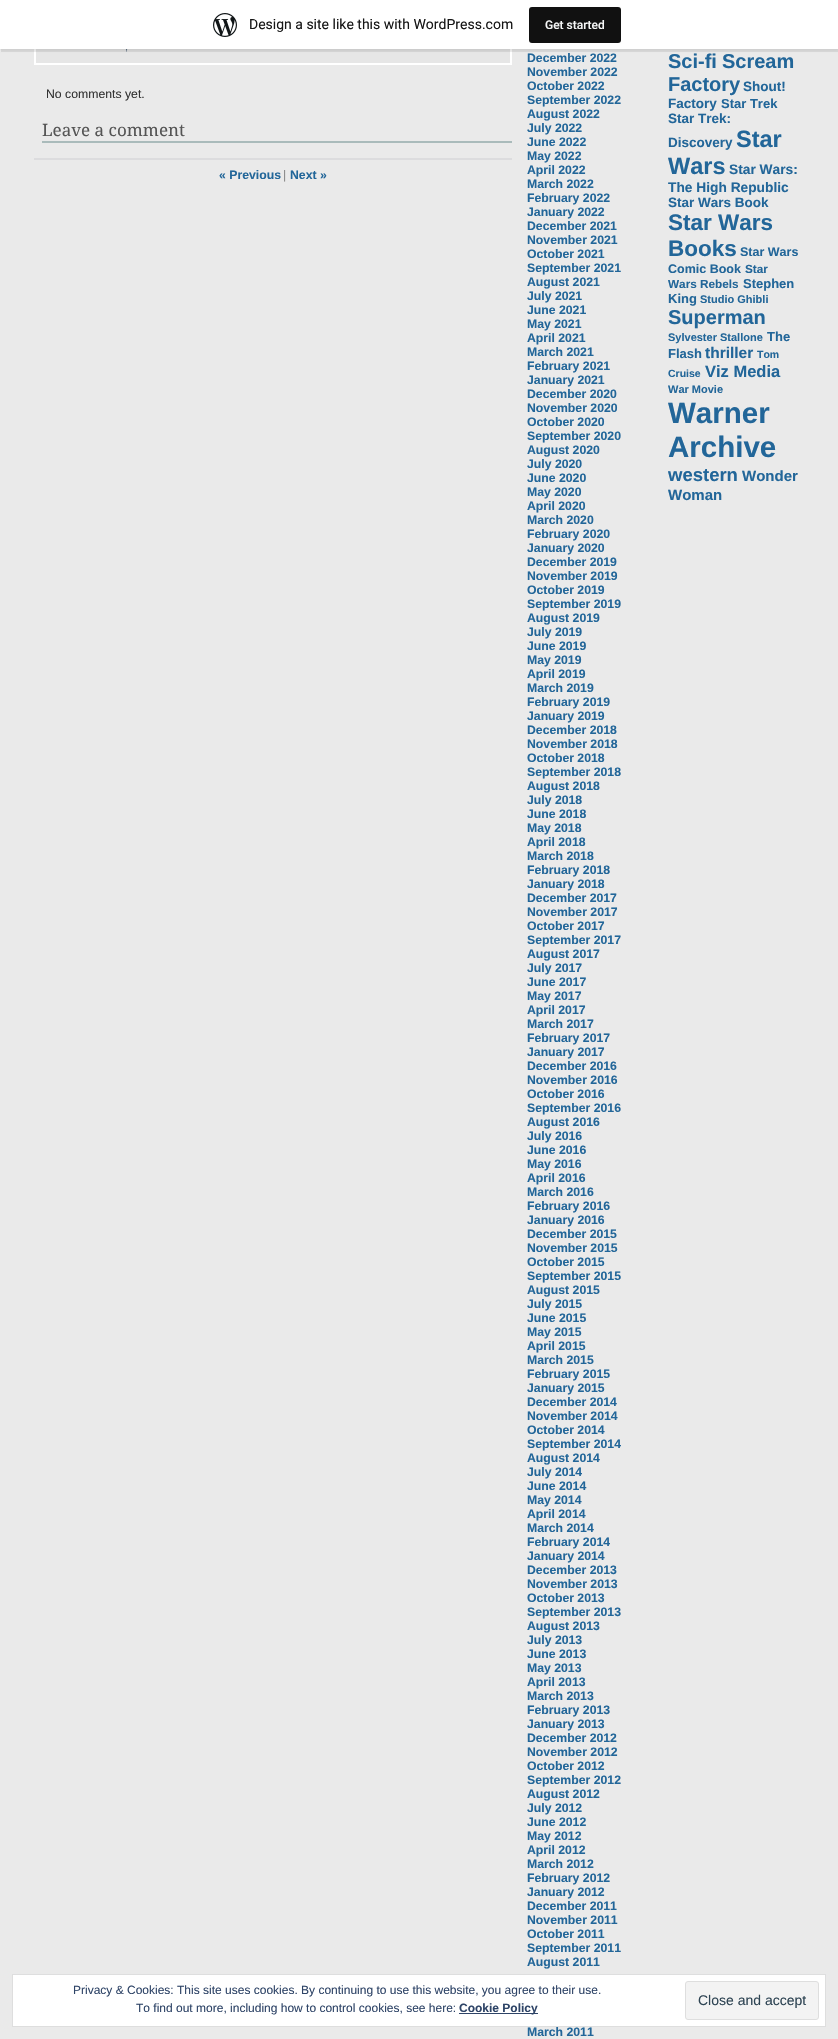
#include "include/core/SkBlurTypes.h"
#include "include/core/SkCanvas.h"
#include "include/core/SkData.h"
#include "include/core/SkFont.h"
#include "include/core/SkFontMgr.h"
#include "include/core/SkImage.h"
#include "include/core/SkMaskFilter.h"
#include "include/core/SkPaint.h"
#include "include/core/SkPathBuilder.h"
#include "include/core/SkTextBlob.h"
#include "include/effects/SkDashPathEffect.h"
#include "include/effects/SkGradientShader.h"
#include "include/utils/SkParsePath.h"

extern sk_sp<SkFontMgr> fontMgr;

void draw(SkCanvas* canvas) {
    SkPaint p;
    p.setAntiAlias(true);
    auto font = [&](const char* family, int weight, float size, bool italic = false) {
        SkFontStyle style(weight, SkFontStyle::kNormal_Width,
            italic ? SkFontStyle::kItalic_Slant : SkFontStyle::kUpright_Slant);
        SkFont result(fontMgr->matchFamilyStyle(family, style), size);
        result.setSubpixel(true);
        return result;
    };
    auto drawPhoto = [&](const char* path, float l, float t, float r, float b) {
        auto image = SkImages::DeferredFromEncodedData(SkData::MakeFromFileName(path));
        canvas->drawImageRect(image, SkRect::MakeLTRB(l, t, r, b), SkSamplingOptions());
    };
    canvas->clear(0xFFEAEAEA);
    p.setColor(0xFFE6E6E6);
    canvas->drawRect(SkRect::MakeLTRB(36, 49, 510, 63), p);
    p.setStyle(SkPaint::kStroke_Style);
    p.setStrokeWidth(2);
    p.setColor(0xFFFFFFFF);
    canvas->drawRect(SkRect::MakeLTRB(35, -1, 511, 64), p);
    p.setStyle(SkPaint::kFill_Style);
    p.setColor(0x0D000000);
    p.setMaskFilter(SkMaskFilter::MakeBlur(kNormal_SkBlurStyle, 1));
    canvas->drawRect(SkRect::MakeLTRB(0, 1, 838, 50), p);
    p.setMaskFilter(nullptr);
    p.setColor(0x14000000);
    canvas->drawPath(SkPathBuilder().moveTo(1, 49).lineTo(1, 52).lineTo(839, 52).lineTo(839, 3).lineTo(838, 3).lineTo(838, 49).close().detach(), p);
    auto font1 = font("Liberation Sans", 400, 11);
    p.setColor(0xFF556677);
    canvas->drawString(",", 125, 50, font1, p);
    p.setColor(0xFFFFFFFF);
    canvas->drawRect(SkRect::MakeLTRB(0, 0, 838, 49), p);
    drawPhoto("media/1.png", 213, 13, 237, 37);
    auto font2 = font("Roboto", 400, 14);
    p.setColor(0xFF171717);
    canvas->drawString("Design a site like this with WordPress.com", 249, 29, font2, p);
    p.setColor(0xFF111111);
    canvas->drawRoundRect(SkRect::MakeLTRB(529, 7, 621, 43), 3, 3, p);
    auto font3 = font("Roboto", 500, 12);
    p.setColor(0xFFF6F7F7);
    canvas->drawString("Get started", 545, 29, font3, p);
    auto font4 = font("Liberation Sans", 400, 12.25f);
    p.setColor(0xFF333333);
    canvas->drawString("No comments yet.", 46, 98, font4, p);
    p.setColor(0xFFAABBBB);
    canvas->drawRect(SkRect::MakeLTRB(42, 141, 512, 143), p);
    auto font5 = font("Noto Serif", 400, 17);
    p.setColor(0xFF555555);
    canvas->drawString("Leave a comment", 42, 136, font5, p);
    p.setColor(0xFFDCDCDE);
    canvas->drawRect(SkRect::MakeLTRB(34, 158, 512, 160), p);
    auto font6 = font("Liberation Sans", 700, 12.25f);
    p.setColor(0xFF226699);
    canvas->drawString("« Previous", 219, 179, font6, p);
    p.setColor(0xFF888888);
    canvas->drawString("|", 283, 179, font4, p);
    p.setColor(0xFF226699);
    {
        const struct { const char* s; float x, y; } items[] = {
            {"Next »", 290, 179},
            {"December 2022", 527, 62},
            {"November 2022", 527, 76},
            {"October 2022", 527, 90},
            {"September 2022", 527, 104},
            {"August 2022", 527, 118},
            {"July 2022", 527, 132},
            {"June 2022", 527, 146},
            {"May 2022", 527, 160},
            {"April 2022", 527, 174},
            {"March 2022", 527, 188},
            {"February 2022", 527, 202},
            {"January 2022", 527, 216},
            {"December 2021", 527, 230},
            {"November 2021", 527, 244},
            {"October 2021", 527, 258},
            {"September 2021", 527, 272},
            {"August 2021", 527, 286},
            {"July 2021", 527, 300},
            {"June 2021", 527, 314},
            {"May 2021", 527, 328},
            {"April 2021", 527, 342},
            {"March 2021", 527, 356},
            {"February 2021", 527, 370},
            {"January 2021", 527, 384},
            {"December 2020", 527, 398},
            {"November 2020", 527, 412},
            {"October 2020", 527, 426},
            {"September 2020", 527, 440},
            {"August 2020", 527, 454},
            {"July 2020", 527, 468},
            {"June 2020", 527, 482},
            {"May 2020", 527, 496},
            {"April 2020", 527, 510},
            {"March 2020", 527, 524},
            {"February 2020", 527, 538},
            {"January 2020", 527, 552},
            {"December 2019", 527, 566},
            {"November 2019", 527, 580},
            {"October 2019", 527, 594},
            {"September 2019", 527, 608},
            {"August 2019", 527, 622},
            {"July 2019", 527, 636},
            {"June 2019", 527, 650},
            {"May 2019", 527, 664},
            {"April 2019", 527, 678},
            {"March 2019", 527, 692},
            {"February 2019", 527, 706},
            {"January 2019", 527, 720},
            {"December 2018", 527, 734},
            {"November 2018", 527, 748},
            {"October 2018", 527, 762},
            {"September 2018", 527, 776},
            {"August 2018", 527, 790},
            {"July 2018", 527, 804},
            {"June 2018", 527, 818},
            {"May 2018", 527, 832},
            {"April 2018", 527, 846},
            {"March 2018", 527, 860},
            {"February 2018", 527, 874},
            {"January 2018", 527, 888},
            {"December 2017", 527, 902},
            {"November 2017", 527, 916},
            {"October 2017", 527, 930},
            {"September 2017", 527, 944},
            {"August 2017", 527, 958},
            {"July 2017", 527, 972},
            {"June 2017", 527, 986},
            {"May 2017", 527, 1000},
            {"April 2017", 527, 1014},
            {"March 2017", 527, 1028},
            {"February 2017", 527, 1042},
            {"January 2017", 527, 1056},
            {"December 2016", 527, 1070},
            {"November 2016", 527, 1084},
            {"October 2016", 527, 1098},
            {"September 2016", 527, 1112},
            {"August 2016", 527, 1126},
            {"July 2016", 527, 1140},
            {"June 2016", 527, 1154},
            {"May 2016", 527, 1168},
            {"April 2016", 527, 1182},
            {"March 2016", 527, 1196},
            {"February 2016", 527, 1210},
            {"January 2016", 527, 1224},
            {"December 2015", 527, 1238},
            {"November 2015", 527, 1252},
            {"October 2015", 527, 1266},
            {"September 2015", 527, 1280},
            {"August 2015", 527, 1294},
            {"July 2015", 527, 1308},
            {"June 2015", 527, 1322},
            {"May 2015", 527, 1336},
            {"April 2015", 527, 1350},
            {"March 2015", 527, 1364},
            {"February 2015", 527, 1378},
            {"January 2015", 527, 1392},
            {"December 2014", 527, 1406},
            {"November 2014", 527, 1420},
            {"October 2014", 527, 1434},
            {"September 2014", 527, 1448},
            {"August 2014", 527, 1462},
            {"July 2014", 527, 1476},
            {"June 2014", 527, 1490},
            {"May 2014", 527, 1504},
            {"April 2014", 527, 1518},
            {"March 2014", 527, 1532},
            {"February 2014", 527, 1546},
            {"January 2014", 527, 1560},
            {"December 2013", 527, 1574},
            {"November 2013", 527, 1588},
            {"October 2013", 527, 1602},
            {"September 2013", 527, 1616},
            {"August 2013", 527, 1630},
            {"July 2013", 527, 1644},
            {"June 2013", 527, 1658},
            {"May 2013", 527, 1672},
            {"April 2013", 527, 1686},
            {"March 2013", 527, 1700},
            {"February 2013", 527, 1714},
            {"January 2013", 527, 1728},
            {"December 2012", 527, 1742},
            {"November 2012", 527, 1756},
            {"October 2012", 527, 1770},
            {"September 2012", 527, 1784},
            {"August 2012", 527, 1798},
            {"July 2012", 527, 1812},
            {"June 2012", 527, 1826},
            {"May 2012", 527, 1840},
            {"April 2012", 527, 1854},
            {"March 2012", 527, 1868},
            {"February 2012", 527, 1882},
            {"January 2012", 527, 1896},
            {"December 2011", 527, 1910},
            {"November 2011", 527, 1924},
            {"October 2011", 527, 1938},
            {"September 2011", 527, 1952},
            {"August 2011", 527, 1966},
            {"March 2011", 527, 2036},
        };
        for (auto [s, x, y] : items) {
            canvas->drawString(s, x, y, font6, p);
        }
    }
    auto font7 = font("Liberation Sans", 700, 20);
    {
        const struct { const char* s; float x, y; } items[] = {
            {"Sci-fi", 668, 68},
            {"Scream", 722, 68},
            {"Factory", 668, 91},
        };
        for (auto [s, x, y] : items) {
            canvas->drawString(s, x, y, font7, p);
        }
    }
    auto font8 = font("Liberation Sans", 700, 13.5f);
    canvas->drawString("Shout!", 743, 91, font8, p);
    canvas->drawString("Factory", 668, 108, font8, p);
    auto font9 = font("Liberation Sans", 700, 13);
    canvas->drawString("Star Trek", 721, 108, font9, p);
    canvas->drawString("Star Trek:", 668, 123, font8, p);
    canvas->drawString("Discovery", 668, 147, font8, p);
    auto font10 = font("Liberation Sans", 700, 23.5f);
    canvas->drawString("Star", 736, 147, font10, p);
    canvas->drawString("Wars", 668, 174, font10, p);
    auto font11 = font("Liberation Sans", 700, 13.75f);
    canvas->drawString("Star Wars:", 729, 174, font11, p);
    canvas->drawString("The High Republic", 668, 192, font11, p);
    canvas->drawString("Star Wars Book", 668, 207, font8, p);
    auto font12 = font("Liberation Sans", 700, 22.5f);
    canvas->drawString("Star Wars", 668, 230, font12, p);
    canvas->drawString("Books", 668, 256, font12, p);
    auto font13 = font("Liberation Sans", 700, 12.5f);
    canvas->drawString("Star Wars", 740, 256, font13, p);
    canvas->drawString("Comic Book", 668, 273, font13, p);
    auto font14 = font("Liberation Sans", 700, 11.75f);
    canvas->drawString("Star", 745, 273, font14, p);
    canvas->drawString("Wars Rebels", 668, 288, font14, p);
    canvas->drawString("Stephen", 743, 288, font9, p);
    canvas->drawString("King", 668, 303, font9, p);
    auto font15 = font("Liberation Sans", 700, 11);
    canvas->drawString("Studio Ghibli", 700, 303, font15, p);
    canvas->drawString("Superman", 668, 324, font7, p);
    canvas->drawString("Sylvester Stallone", 668, 341, font15, p);
    canvas->drawString("The", 767, 341, font9, p);
    canvas->drawString("Flash", 668, 358, font9, p);
    auto font16 = font("Liberation Sans", 700, 15.5f);
    canvas->drawString("thriller", 705, 358, font16, p);
    auto font17 = font("Liberation Sans", 700, 10.5f);
    canvas->drawString("Tom", 757, 358, font17, p);
    canvas->drawString("Cruise", 668, 377, font17, p);
    auto font18 = font("Liberation Sans", 700, 16.5f);
    canvas->drawString("Viz Media", 705, 377, font18, p);
    canvas->drawString("War Movie", 668, 393, font15, p);
    auto font19 = font("Liberation Sans", 700, 29.5f);
    canvas->drawString("Warner", 668, 423, font19, p);
    canvas->drawString("Archive", 668, 457, font19, p);
    auto font20 = font("Liberation Sans", 700, 18.5f);
    canvas->drawString("western", 668, 481, font20, p);
    auto font21 = font("Liberation Sans", 700, 15);
    canvas->drawString("Wonder", 742, 481, font21, p);
    canvas->drawString("Woman", 668, 500, font21, p);
    p.setColor(0xFFFFFFFF);
    canvas->drawRect(SkRect::MakeLTRB(12.5f, 1974.5f, 825.5f, 2026.5f), p);
    p.setStyle(SkPaint::kStroke_Style);
    p.setStrokeWidth(1);
    p.setColor(0xFFDEDEDE);
    canvas->drawRect(SkRect::MakeLTRB(12.5f, 1974.5f, 825.5f, 2026.5f), p);
    auto font22 = font("Liberation Sans", 400, 12);
    p.setStyle(SkPaint::kFill_Style);
    p.setColor(0xFF2E4467);
    canvas->drawString("Privacy & Cookies: This site uses cookies. By continuing to use this website, you agree to their use.", 73, 1994, font22, p);
    canvas->drawString("To find out more, including how to control cookies, see here:", 136, 2012, font22, p);
    canvas->drawRect(SkRect::MakeLTRB(459, 2013, 538, 2014), p);
    auto font23 = font("Liberation Sans", 700, 12);
    canvas->drawString("Cookie Policy", 459, 2012, font23, p);
    p.setColor(0xFFF3F3F3);
    canvas->drawRoundRect(SkRect::MakeLTRB(685.5f, 1981.5f, 818.5f, 2019.5f), 2.5f, 2.5f, p);
    p.setStyle(SkPaint::kStroke_Style);
    p.setColor(0xFFDEDEDE);
    canvas->drawRoundRect(SkRect::MakeLTRB(685.5f, 1981.5f, 818.5f, 2019.5f), 2.5f, 2.5f, p);
    auto font24 = font("Liberation Sans", 400, 14);
    p.setStyle(SkPaint::kFill_Style);
    p.setColor(0xFF2E4453);
    canvas->drawString("Close and accept", 698, 2005, font24, p);
}
